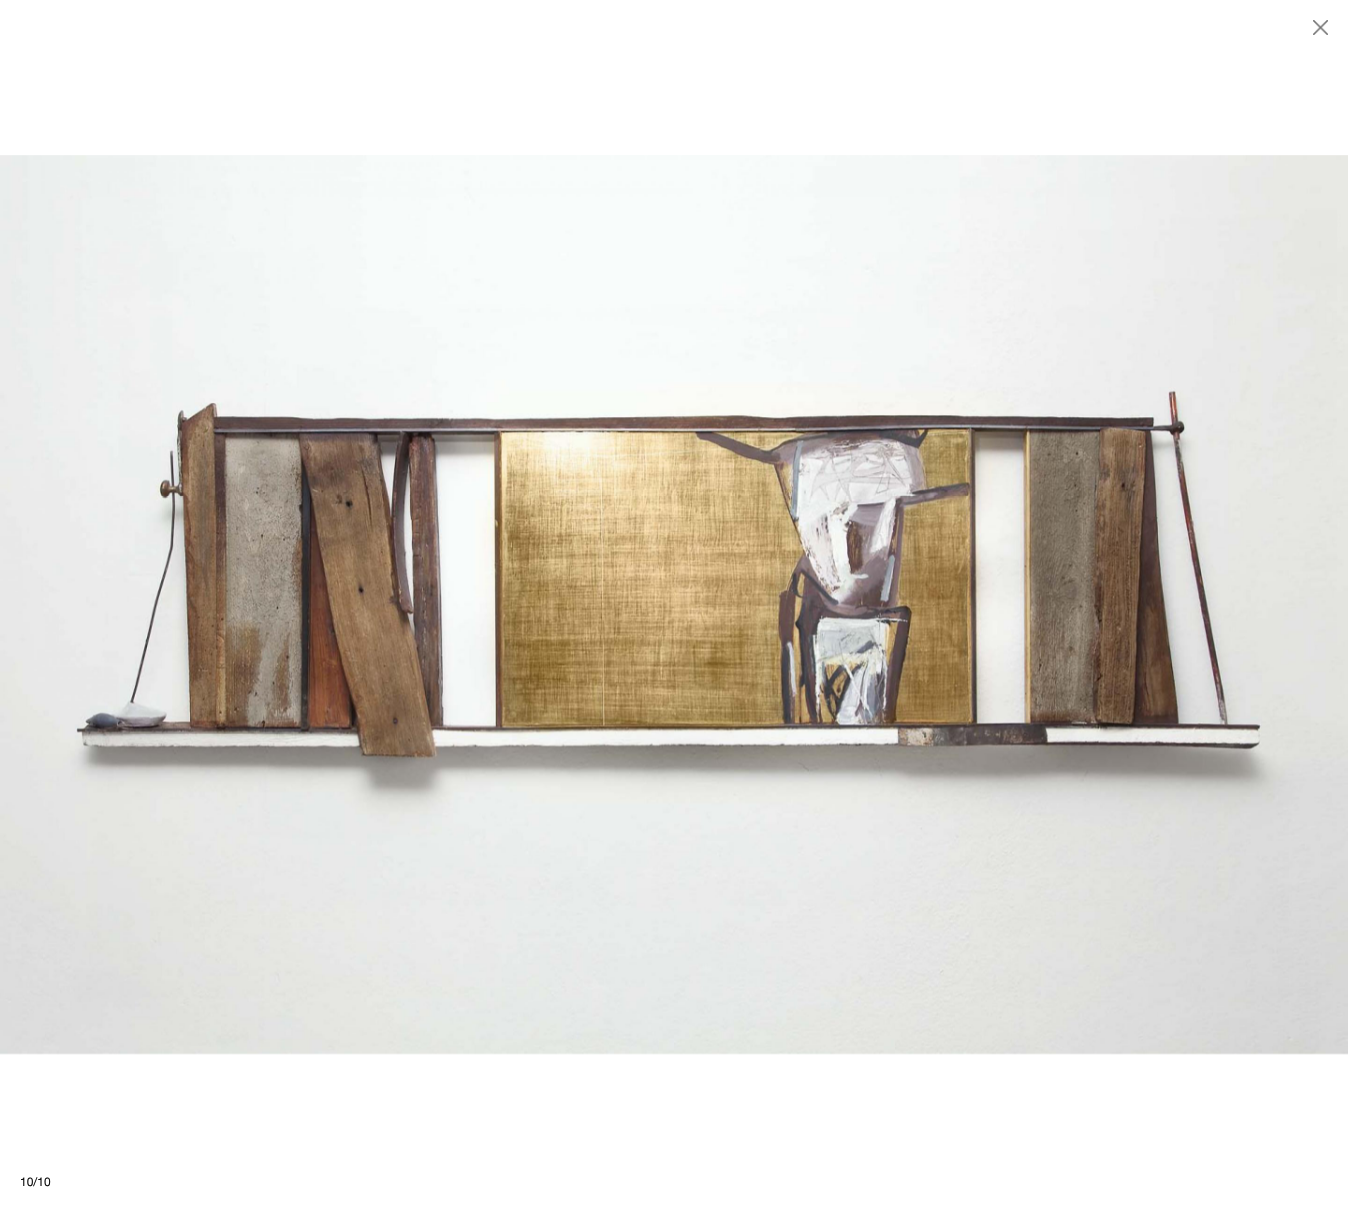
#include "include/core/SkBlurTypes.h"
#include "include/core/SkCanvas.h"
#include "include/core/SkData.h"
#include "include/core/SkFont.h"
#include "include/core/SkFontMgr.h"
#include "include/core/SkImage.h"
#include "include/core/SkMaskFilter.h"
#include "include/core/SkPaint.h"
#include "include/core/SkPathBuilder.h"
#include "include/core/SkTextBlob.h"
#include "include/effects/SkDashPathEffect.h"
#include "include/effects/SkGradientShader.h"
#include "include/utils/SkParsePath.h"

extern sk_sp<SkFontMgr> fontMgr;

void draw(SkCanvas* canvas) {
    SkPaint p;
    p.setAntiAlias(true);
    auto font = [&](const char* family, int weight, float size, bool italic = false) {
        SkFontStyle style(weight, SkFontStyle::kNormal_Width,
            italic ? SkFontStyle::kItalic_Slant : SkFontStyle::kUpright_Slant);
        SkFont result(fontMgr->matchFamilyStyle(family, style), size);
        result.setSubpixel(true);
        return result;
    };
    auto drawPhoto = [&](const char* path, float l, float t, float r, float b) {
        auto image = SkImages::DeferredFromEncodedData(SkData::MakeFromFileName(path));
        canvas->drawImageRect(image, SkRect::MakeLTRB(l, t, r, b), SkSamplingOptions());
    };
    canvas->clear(0xFFFFFFFF);
    drawPhoto("media/1.png", 1313, 20, 1328, 35);
    drawPhoto("media/2.png", 0, 155, 1348, 1055);
    auto font1 = font("Helvetica Neue", 400, 12);
    p.setColor(0xFF111111);
    canvas->drawString("10/10", 20, 1186, font1, p);
}
